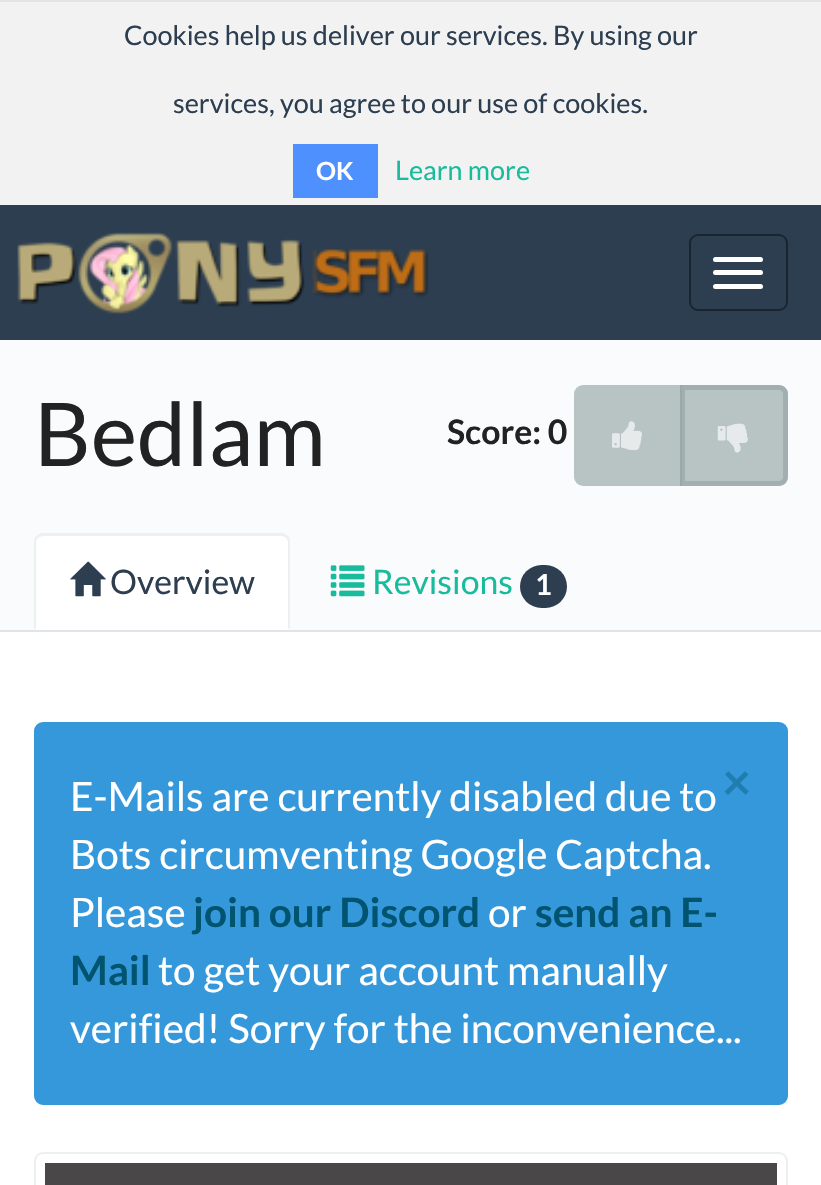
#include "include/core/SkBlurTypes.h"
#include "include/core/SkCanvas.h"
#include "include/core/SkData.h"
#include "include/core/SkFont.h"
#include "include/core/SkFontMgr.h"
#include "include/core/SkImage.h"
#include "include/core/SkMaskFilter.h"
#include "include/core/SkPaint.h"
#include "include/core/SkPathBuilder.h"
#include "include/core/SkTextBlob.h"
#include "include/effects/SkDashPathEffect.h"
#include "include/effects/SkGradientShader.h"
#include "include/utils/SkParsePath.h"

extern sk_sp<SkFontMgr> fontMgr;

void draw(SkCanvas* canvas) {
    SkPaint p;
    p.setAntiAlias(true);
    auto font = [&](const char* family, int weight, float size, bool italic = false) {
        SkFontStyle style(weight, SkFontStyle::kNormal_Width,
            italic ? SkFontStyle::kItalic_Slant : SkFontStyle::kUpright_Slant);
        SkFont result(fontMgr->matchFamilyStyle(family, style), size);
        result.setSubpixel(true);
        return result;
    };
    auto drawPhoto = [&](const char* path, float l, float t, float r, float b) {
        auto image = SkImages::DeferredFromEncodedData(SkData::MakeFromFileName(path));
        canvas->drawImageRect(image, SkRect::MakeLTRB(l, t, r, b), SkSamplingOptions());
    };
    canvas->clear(0xFFFFFFFF);
    p.setColor(0xFFF2F2F2);
    canvas->drawRect(SkRect::MakeLTRB(0, 2, 821, 205), p);
    p.setColor(0xFFE4E4E4);
    canvas->drawRect(SkRect::MakeLTRB(0, 0, 821, 2), p);
    auto font1 = font("Lato", 400, 27);
    p.setColor(0xFF2C3E50);
    canvas->drawString("Cookies help us deliver our services. By using our", 124, 45, font1, p);
    canvas->drawString("services, you agree to our use of cookies.", 173, 113, font1, p);
    p.setColor(0xFF4D90FE);
    canvas->drawRect(SkRect::MakeLTRB(293, 144, 378, 198), p);
    auto font2 = font("Lato", 700, 25);
    p.setColor(0xFFFFFFFF);
    canvas->drawString("OK", 316, 180, font2, p);
    p.setColor(0xFF18BC9C);
    canvas->drawString("Learn more", 395, 180, font1, p);
    p.setColor(0xFF2C3E50);
    canvas->drawRect(SkRect::MakeLTRB(0, 205, 821, 340), p);
    drawPhoto("media/1.png", 17, 232, 429, 314);
    p.setStyle(SkPaint::kStroke_Style);
    p.setStrokeWidth(2);
    p.setColor(0xFF1A242F);
    canvas->drawRoundRect(SkRect::MakeLTRB(690, 235, 787, 310), 8, 8, p);
    p.setStyle(SkPaint::kFill_Style);
    p.setColor(0xFFFFFFFF);
    canvas->drawRoundRect(SkRect::MakeLTRB(713, 257, 763, 262), 2.5f, 2.5f, p);
    canvas->drawRoundRect(SkRect::MakeLTRB(713, 270, 763, 275), 2.5f, 2.5f, p);
    canvas->drawRoundRect(SkRect::MakeLTRB(713, 284, 763, 289), 2.5f, 2.5f, p);
    p.setColor(0xFFFAFBFC);
    canvas->drawRect(SkRect::MakeLTRB(0, 340, 821, 630), p);
    p.setColor(0xFFE1E4E8);
    canvas->drawRect(SkRect::MakeLTRB(0, 630, 821, 632), p);
    auto font3 = font("Lato", 400, 88);
    p.setColor(0xFF222222);
    canvas->drawString("Bedlam", 34, 466, font3, p);
    auto font4 = font("Lato", 700, 33.75f);
    canvas->drawString("Score: 0", 447, 444, font4, p);
    p.setColor(0xFFB8C3C4);
    canvas->drawPath(SkPathBuilder().moveTo(583, 387.5f).lineTo(679.5f, 387.5f).lineTo(679.5f, 483.5f).lineTo(583, 483.5f).cubicTo(579.5f, 483.5f, 576.5f, 480.5f, 576.5f, 477).lineTo(576.5f, 394).cubicTo(576.5f, 390.5f, 579.5f, 387.5f, 583, 387.5f).close().detach(), p);
    p.setStyle(SkPaint::kStroke_Style);
    p.setStrokeWidth(5);
    canvas->drawPath(SkPathBuilder().moveTo(583, 387.5f).lineTo(679.5f, 387.5f).lineTo(679.5f, 483.5f).lineTo(583, 483.5f).cubicTo(579.5f, 483.5f, 576.5f, 480.5f, 576.5f, 477).lineTo(576.5f, 394).cubicTo(576.5f, 390.5f, 579.5f, 387.5f, 583, 387.5f).close().detach(), p);
    drawPhoto("media/2.png", 612, 421, 642, 451);
    p.setStyle(SkPaint::kFill_Style);
    p.setColor(0xA695A5A6);
    canvas->drawPath(SkPathBuilder().moveTo(680, 385).lineTo(779, 385).cubicTo(784, 385, 788, 389, 788, 394).lineTo(788, 477).cubicTo(788, 482, 784, 486, 779, 486).lineTo(680, 486).close().detach(), p);
    p.setStyle(SkPaint::kStroke_Style);
    canvas->drawPath(SkPathBuilder().moveTo(682.5f, 387.5f).lineTo(779, 387.5f).cubicTo(782.5f, 387.5f, 785.5f, 390.5f, 785.5f, 394).lineTo(785.5f, 477).cubicTo(785.5f, 480.5f, 782.5f, 483.5f, 779, 483.5f).lineTo(682.5f, 483.5f).close().detach(), p);
    drawPhoto("media/3.png", 717, 423, 748, 453);
    p.setStyle(SkPaint::kFill_Style);
    p.setColor(0xFFFFFFFF);
    canvas->drawPath(SkPathBuilder().moveTo(43, 533).lineTo(281, 533).cubicTo(286, 533, 290, 537, 290, 542).lineTo(290, 630).lineTo(34, 630).lineTo(34, 542).cubicTo(34, 537, 38, 533, 43, 533).close().detach(), p);
    p.setColor(0xFFECF0F1);
    canvas->drawPath(SkPathBuilder().moveTo(43, 536).cubicTo(41, 536, 39, 537, 38, 538).lineTo(36, 536).cubicTo(38, 535, 39, 534, 41, 533).lineTo(283, 533).cubicTo(285, 534, 286, 535, 288, 536).lineTo(286, 538).cubicTo(285, 537, 283, 536, 281, 536).close().detach(), p);
    canvas->drawPath(SkPathBuilder().moveTo(288, 536).cubicTo(289, 537, 290, 540, 290, 542).lineTo(290, 630).lineTo(288, 628).lineTo(288, 542).cubicTo(288, 540, 287, 539, 286, 538).close().detach(), p);
    canvas->drawPath(SkPathBuilder().moveTo(34, 630).lineTo(34, 542).cubicTo(34, 540, 35, 537, 36, 536).lineTo(38, 538).cubicTo(37, 539, 36, 540, 36, 542).lineTo(36, 628).close().detach(), p);
    drawPhoto("media/4.png", 70, 561, 106, 597);
    auto font5 = font("Lato", 400, 33.75f);
    p.setColor(0xFF2C3E50);
    canvas->drawString("Overview", 110, 594, font5, p);
    drawPhoto("media/5.png", 330, 565, 365, 597);
    p.setColor(0xFF18BC9C);
    canvas->drawString("Revisions", 372, 594, font5, p);
    p.setColor(0xFF2C3E50);
    canvas->drawRoundRect(SkRect::MakeLTRB(520, 565, 567, 608), 21.5f, 21.5f, p);
    auto font6 = font("Lato", 700, 29);
    p.setColor(0xFFFFFFFF);
    canvas->drawString("1", 535, 595, font6, p);
    p.setColor(0xFF3498DB);
    canvas->drawRoundRect(SkRect::MakeLTRB(35, 723, 787, 1104), 8, 8, p);
    p.setStyle(SkPaint::kStroke_Style);
    p.setStrokeWidth(2);
    canvas->drawRoundRect(SkRect::MakeLTRB(35, 723, 787, 1104), 8, 8, p);
    auto font7 = font("Lato", 700, 51);
    p.setStyle(SkPaint::kFill_Style);
    p.setColor(0xFF1F7DB0);
    canvas->drawString("×", 722, 800, font7, p);
    auto font8 = font("Lato", 400, 40.5f);
    p.setColor(0xFFFFFFFF);
    {
        const struct { const char* s; float x, y; } items[] = {
            {"E-Mails are currently disabled due to", 70, 811},
            {"Bots circumventing Google Captcha.", 70, 869},
            {"Please", 70, 927},
        };
        for (auto [s, x, y] : items) {
            canvas->drawString(s, x, y, font8, p);
        }
    }
    auto font9 = font("Lato", 700, 40.5f);
    p.setColor(0xFF00546F);
    canvas->drawString("join our Discord", 193, 927, font9, p);
    p.setColor(0xFFFFFFFF);
    canvas->drawString("or", 488, 927, font8, p);
    p.setColor(0xFF00546F);
    canvas->drawString("send an E-", 535, 927, font9, p);
    canvas->drawString("Mail", 70, 985, font9, p);
    p.setColor(0xFFFFFFFF);
    canvas->drawString("to get your account manually", 158, 985, font8, p);
    canvas->drawString("verified! Sorry for the inconvenience...", 70, 1043, font8, p);
    p.setStyle(SkPaint::kStroke_Style);
    p.setColor(0xFFECF0F1);
    canvas->drawRoundRect(SkRect::MakeLTRB(35, 1153, 787, 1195), 8, 8, p);
    p.setStyle(SkPaint::kFill_Style);
    p.setColor(0xFF494748);
    canvas->drawRect(SkRect::MakeLTRB(45, 1163, 777, 1185), p);
}
